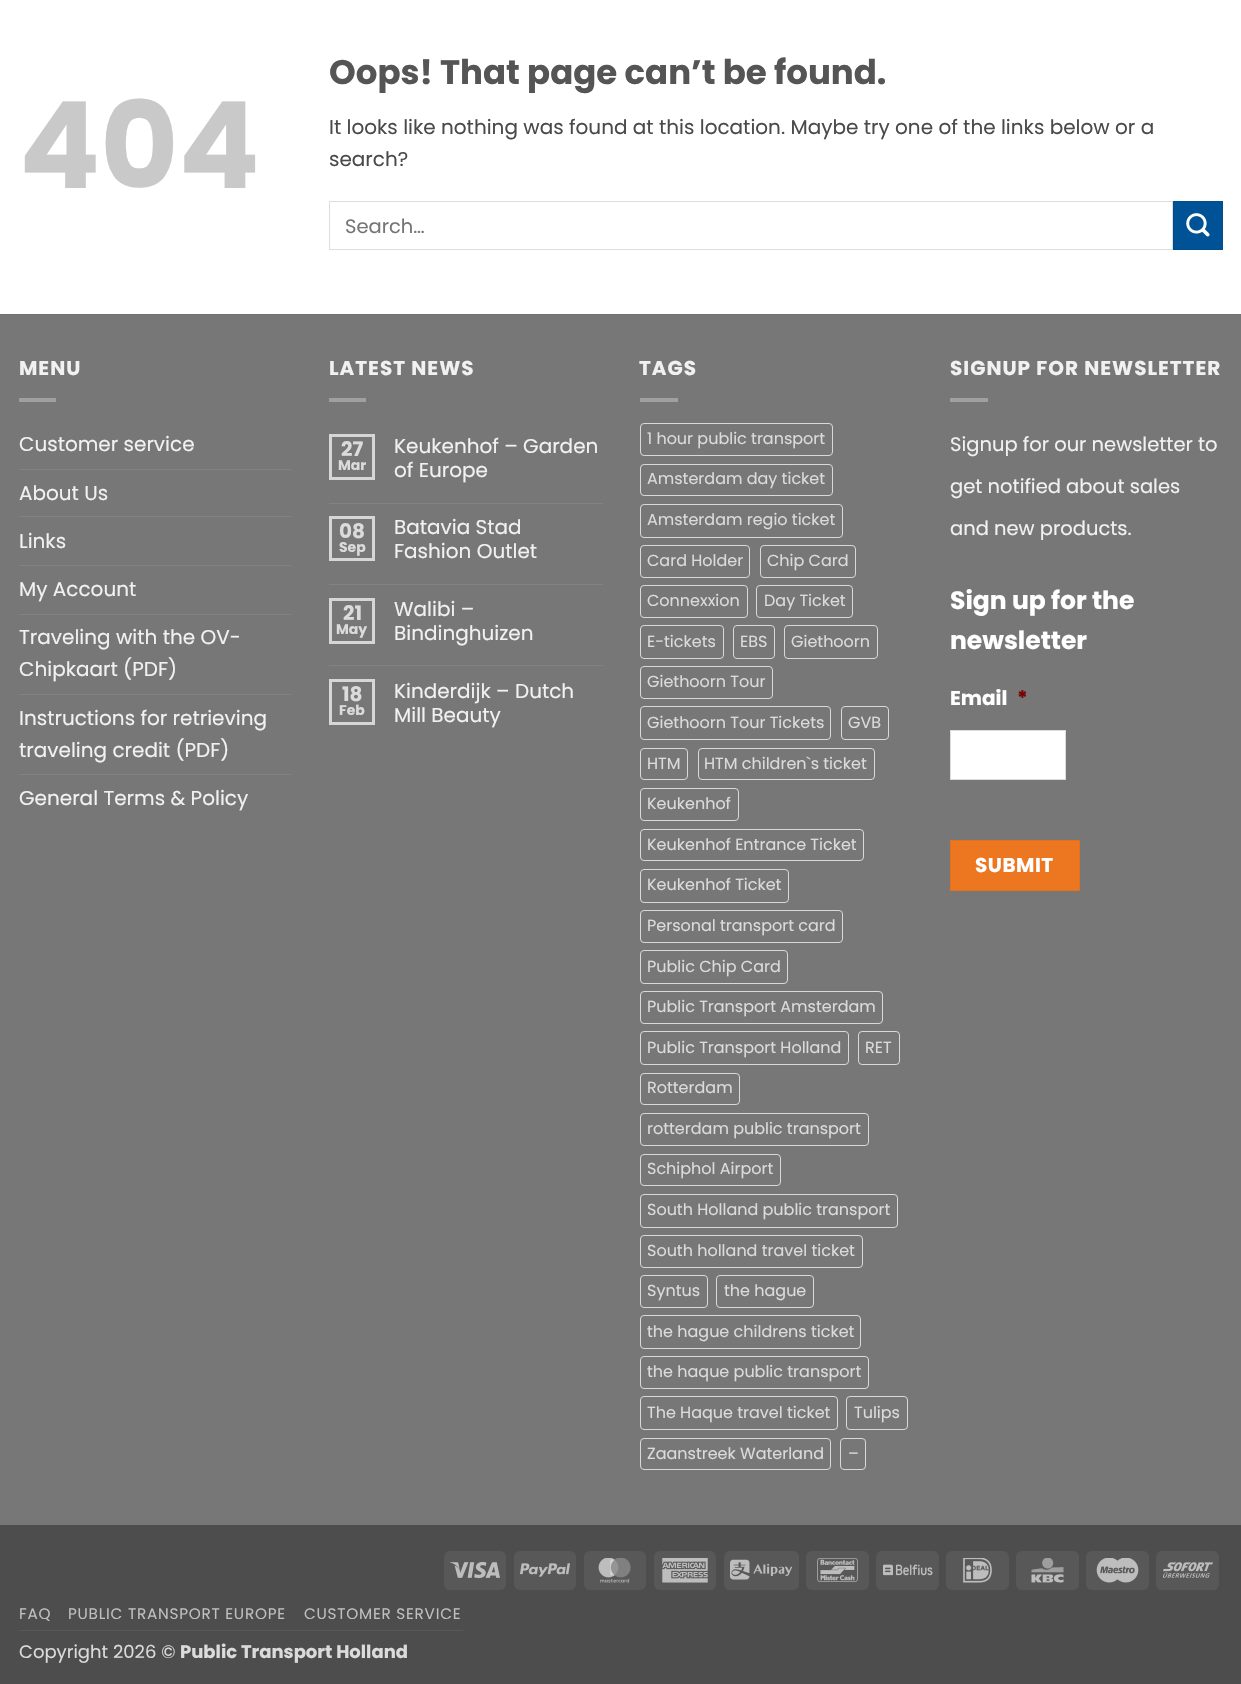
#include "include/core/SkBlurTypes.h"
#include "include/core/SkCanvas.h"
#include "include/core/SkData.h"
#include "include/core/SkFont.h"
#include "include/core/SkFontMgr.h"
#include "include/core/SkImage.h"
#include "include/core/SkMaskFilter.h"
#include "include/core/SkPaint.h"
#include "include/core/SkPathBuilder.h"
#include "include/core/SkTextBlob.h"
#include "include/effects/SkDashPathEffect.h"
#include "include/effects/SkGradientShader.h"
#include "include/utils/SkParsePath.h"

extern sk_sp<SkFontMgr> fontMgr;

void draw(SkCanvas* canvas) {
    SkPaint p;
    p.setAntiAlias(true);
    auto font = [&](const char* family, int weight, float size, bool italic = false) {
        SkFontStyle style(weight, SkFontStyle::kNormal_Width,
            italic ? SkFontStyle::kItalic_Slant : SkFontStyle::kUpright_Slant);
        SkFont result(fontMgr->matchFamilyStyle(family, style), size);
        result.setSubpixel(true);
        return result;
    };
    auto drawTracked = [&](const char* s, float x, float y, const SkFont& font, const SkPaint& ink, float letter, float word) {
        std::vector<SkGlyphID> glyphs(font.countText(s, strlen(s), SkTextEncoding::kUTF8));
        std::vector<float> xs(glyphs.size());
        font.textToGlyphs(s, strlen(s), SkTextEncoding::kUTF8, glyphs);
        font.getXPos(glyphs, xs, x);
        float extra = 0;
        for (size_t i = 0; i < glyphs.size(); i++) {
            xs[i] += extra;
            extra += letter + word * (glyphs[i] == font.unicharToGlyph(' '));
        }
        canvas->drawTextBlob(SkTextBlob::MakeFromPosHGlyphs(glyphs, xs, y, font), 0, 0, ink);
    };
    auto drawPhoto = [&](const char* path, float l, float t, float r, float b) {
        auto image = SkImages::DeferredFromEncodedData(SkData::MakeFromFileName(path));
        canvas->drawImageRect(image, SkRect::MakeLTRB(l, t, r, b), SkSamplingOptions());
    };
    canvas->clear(0xFFFFFFFF);
    auto font1 = font("Poppins", 700, 120);
    p.setColor(0xFFC9C9C9);
    canvas->drawString("404", 19, 188, font1, p);
    auto font2 = font("Poppins", 700, 34);
    p.setColor(0xFF555555);
    canvas->drawString("Oops! That page can’t be found.", 329, 84, font2, p);
    auto font3 = font("Poppins", 400, 20);
    p.setColor(0xFF4A4A4A);
    canvas->drawString("It looks like nothing was found at this location. Maybe try one of the links below or a", 329, 134, font3, p);
    canvas->drawString("search?", 329, 166, font3, p);
    p.setStyle(SkPaint::kStroke_Style);
    p.setStrokeWidth(1);
    p.setColor(0xFFDDDDDD);
    canvas->drawRect(SkRect::MakeLTRB(329.5f, 201.5f, 1172.5f, 249.5f), p);
    auto font4 = font("Poppins", 400, 19.5f);
    p.setStyle(SkPaint::kFill_Style);
    p.setColor(0xFF757575);
    canvas->drawString("Search…", 345, 233, font4, p);
    p.setColor(0xFF005297);
    canvas->drawRect(SkRect::MakeLTRB(1173.5f, 201.5f, 1222.5f, 249.5f), p);
    p.setStyle(SkPaint::kStroke_Style);
    p.setColor(0xFF004E8F);
    canvas->drawRect(SkRect::MakeLTRB(1173.5f, 201.5f, 1222.5f, 249.5f), p);
    drawPhoto("media/1.png", 1186, 213, 1210, 237);
    p.setStyle(SkPaint::kFill_Style);
    p.setColor(0xFF777777);
    canvas->drawRect(SkRect::MakeLTRB(0, 315, 1241, 1525), p);
    p.setColor(0xFF717171);
    canvas->drawRect(SkRect::MakeLTRB(0, 314, 1241, 315), p);
    auto font5 = font("Poppins", 700, 20);
    p.setColor(0xFFF1F1F1);
    drawTracked("MENU", 19, 375, font5, p, 1, 0);
    p.setColor(0xFFA0A0A0);
    canvas->drawRect(SkRect::MakeLTRB(19, 398, 56, 402), p);
    p.setColor(0xFFF1F1F1);
    canvas->drawString("Customer service", 19, 451, font3, p);
    p.setColor(0xFF828282);
    canvas->drawRect(SkRect::MakeLTRB(19, 469, 291, 470), p);
    p.setColor(0xFFF1F1F1);
    canvas->drawString("About Us", 19, 500, font3, p);
    p.setColor(0xFF828282);
    canvas->drawRect(SkRect::MakeLTRB(19, 516, 291, 517), p);
    p.setColor(0xFFF1F1F1);
    canvas->drawString("Links", 19, 548, font3, p);
    p.setColor(0xFF828282);
    canvas->drawRect(SkRect::MakeLTRB(19, 565, 291, 566), p);
    p.setColor(0xFFF1F1F1);
    canvas->drawString("My Account", 19, 596, font3, p);
    p.setColor(0xFF828282);
    canvas->drawRect(SkRect::MakeLTRB(19, 614, 291, 615), p);
    p.setColor(0xFFF1F1F1);
    canvas->drawString("Traveling with the OV-", 19, 644, font3, p);
    canvas->drawString("Chipkaart (PDF)", 19, 676, font3, p);
    p.setColor(0xFF828282);
    canvas->drawRect(SkRect::MakeLTRB(19, 694, 291, 695), p);
    p.setColor(0xFFF1F1F1);
    canvas->drawString("Instructions for retrieving", 19, 725, font3, p);
    canvas->drawString("traveling credit (PDF)", 19, 757, font3, p);
    p.setColor(0xFF828282);
    canvas->drawRect(SkRect::MakeLTRB(19, 774, 291, 775), p);
    p.setColor(0xFFF1F1F1);
    canvas->drawString("General Terms & Policy", 19, 805, font3, p);
    drawTracked("LATEST NEWS", 329, 375, font5, p, 1, 0);
    p.setColor(0xFFA0A0A0);
    canvas->drawRect(SkRect::MakeLTRB(329, 398, 366, 402), p);
    p.setStyle(SkPaint::kStroke_Style);
    p.setStrokeWidth(3);
    p.setColor(0xFFD6D6D6);
    canvas->drawRect(SkRect::MakeLTRB(330.5f, 435.5f, 373.5f, 478.5f), p);
    p.setStyle(SkPaint::kFill_Style);
    p.setColor(0xFFDBDBDB);
    canvas->drawString("27", 341, 456, font5, p);
    auto font6 = font("Poppins", 700, 14);
    canvas->drawString("Mar", 338, 470, font6, p);
    p.setColor(0xFFF1F1F1);
    canvas->drawString("Keukenhof – Garden", 394, 453, font3, p);
    canvas->drawString("of Europe", 394, 477, font3, p);
    p.setColor(0xFF828282);
    canvas->drawRect(SkRect::MakeLTRB(329, 503, 603, 504), p);
    p.setStyle(SkPaint::kStroke_Style);
    p.setColor(0xFFD6D6D6);
    canvas->drawRect(SkRect::MakeLTRB(330.5f, 517.5f, 373.5f, 559.5f), p);
    p.setStyle(SkPaint::kFill_Style);
    p.setColor(0xFFDBDBDB);
    canvas->drawString("08", 339, 538, font5, p);
    canvas->drawString("Sep", 339, 552, font6, p);
    p.setColor(0xFFF1F1F1);
    canvas->drawString("Batavia Stad", 394, 534, font3, p);
    canvas->drawString("Fashion Outlet", 394, 558, font3, p);
    p.setColor(0xFF828282);
    canvas->drawRect(SkRect::MakeLTRB(329, 584, 603, 585), p);
    p.setStyle(SkPaint::kStroke_Style);
    p.setColor(0xFFD6D6D6);
    canvas->drawRect(SkRect::MakeLTRB(330.5f, 599.5f, 373.5f, 642.5f), p);
    p.setStyle(SkPaint::kFill_Style);
    p.setColor(0xFFDBDBDB);
    canvas->drawString("21", 343, 620, font5, p);
    canvas->drawString("May", 336, 634, font6, p);
    p.setColor(0xFFF1F1F1);
    canvas->drawString("Walibi –", 394, 616, font3, p);
    canvas->drawString("Bindinghuizen", 394, 640, font3, p);
    p.setColor(0xFF828282);
    canvas->drawRect(SkRect::MakeLTRB(329, 665, 603, 666), p);
    p.setStyle(SkPaint::kStroke_Style);
    p.setColor(0xFFD6D6D6);
    canvas->drawRect(SkRect::MakeLTRB(330.5f, 680.5f, 373.5f, 723.5f), p);
    p.setStyle(SkPaint::kFill_Style);
    p.setColor(0xFFDBDBDB);
    canvas->drawString("18", 342, 701, font5, p);
    canvas->drawString("Feb", 339, 715, font6, p);
    p.setColor(0xFFF1F1F1);
    canvas->drawString("Kinderdijk – Dutch", 394, 698, font3, p);
    canvas->drawString("Mill Beauty", 394, 722, font3, p);
    drawTracked("TAGS", 639, 375, font5, p, 1, 0);
    p.setColor(0xFFA0A0A0);
    canvas->drawRect(SkRect::MakeLTRB(640, 398, 678, 402), p);
    p.setStyle(SkPaint::kStroke_Style);
    p.setStrokeWidth(1);
    p.setColor(0xFFD9D9D9);
    canvas->drawRoundRect(SkRect::MakeLTRB(640.5f, 423.5f, 832.5f, 455.5f), 3.5f, 3.5f, p);
    auto font7 = font("Poppins", 400, 16);
    p.setStyle(SkPaint::kFill_Style);
    p.setColor(0xFFDBDBDB);
    canvas->drawString("1 hour public transport", 647, 444, font7, p);
    p.setStyle(SkPaint::kStroke_Style);
    p.setColor(0xFFD9D9D9);
    canvas->drawRoundRect(SkRect::MakeLTRB(640.5f, 464.5f, 832.5f, 495.5f), 3.5f, 3.5f, p);
    p.setStyle(SkPaint::kFill_Style);
    p.setColor(0xFFDBDBDB);
    canvas->drawString("Amsterdam day ticket", 647, 484, font7, p);
    p.setStyle(SkPaint::kStroke_Style);
    p.setColor(0xFFD9D9D9);
    canvas->drawRoundRect(SkRect::MakeLTRB(640.5f, 504.5f, 842.5f, 537.5f), 3.5f, 3.5f, p);
    p.setStyle(SkPaint::kFill_Style);
    p.setColor(0xFFDBDBDB);
    canvas->drawString("Amsterdam regio ticket", 647, 525, font7, p);
    p.setStyle(SkPaint::kStroke_Style);
    p.setColor(0xFFD9D9D9);
    canvas->drawRoundRect(SkRect::MakeLTRB(640.5f, 545.5f, 749.5f, 577.5f), 3.5f, 3.5f, p);
    p.setStyle(SkPaint::kFill_Style);
    p.setColor(0xFFDBDBDB);
    canvas->drawString("Card Holder", 647, 566, font7, p);
    p.setStyle(SkPaint::kStroke_Style);
    p.setColor(0xFFD9D9D9);
    canvas->drawRoundRect(SkRect::MakeLTRB(760.5f, 545.5f, 855.5f, 577.5f), 3.5f, 3.5f, p);
    p.setStyle(SkPaint::kFill_Style);
    p.setColor(0xFFDBDBDB);
    canvas->drawString("Chip Card", 767, 566, font7, p);
    p.setStyle(SkPaint::kStroke_Style);
    p.setColor(0xFFD9D9D9);
    canvas->drawRoundRect(SkRect::MakeLTRB(640.5f, 585.5f, 747.5f, 617.5f), 3.5f, 3.5f, p);
    p.setStyle(SkPaint::kFill_Style);
    p.setColor(0xFFDBDBDB);
    canvas->drawString("Connexxion", 647, 606, font7, p);
    p.setStyle(SkPaint::kStroke_Style);
    p.setColor(0xFFD9D9D9);
    canvas->drawRoundRect(SkRect::MakeLTRB(756.5f, 585.5f, 852.5f, 617.5f), 3.5f, 3.5f, p);
    p.setStyle(SkPaint::kFill_Style);
    p.setColor(0xFFDBDBDB);
    canvas->drawString("Day Ticket", 764, 606, font7, p);
    p.setStyle(SkPaint::kStroke_Style);
    p.setColor(0xFFD9D9D9);
    canvas->drawRoundRect(SkRect::MakeLTRB(640.5f, 625.5f, 723.5f, 658.5f), 3.5f, 3.5f, p);
    p.setStyle(SkPaint::kFill_Style);
    p.setColor(0xFFDBDBDB);
    canvas->drawString("E-tickets", 647, 647, font7, p);
    p.setStyle(SkPaint::kStroke_Style);
    p.setColor(0xFFD9D9D9);
    canvas->drawRoundRect(SkRect::MakeLTRB(733.5f, 625.5f, 774.5f, 658.5f), 3.5f, 3.5f, p);
    p.setStyle(SkPaint::kFill_Style);
    p.setColor(0xFFDBDBDB);
    canvas->drawString("EBS", 740, 647, font7, p);
    p.setStyle(SkPaint::kStroke_Style);
    p.setColor(0xFFD9D9D9);
    canvas->drawRoundRect(SkRect::MakeLTRB(784.5f, 625.5f, 877.5f, 658.5f), 3.5f, 3.5f, p);
    p.setStyle(SkPaint::kFill_Style);
    p.setColor(0xFFDBDBDB);
    canvas->drawString("Giethoorn", 791, 647, font7, p);
    p.setStyle(SkPaint::kStroke_Style);
    p.setColor(0xFFD9D9D9);
    canvas->drawRoundRect(SkRect::MakeLTRB(640.5f, 666.5f, 772.5f, 698.5f), 3.5f, 3.5f, p);
    p.setStyle(SkPaint::kFill_Style);
    p.setColor(0xFFDBDBDB);
    canvas->drawString("Giethoorn Tour", 647, 687, font7, p);
    p.setStyle(SkPaint::kStroke_Style);
    p.setColor(0xFFD9D9D9);
    canvas->drawRoundRect(SkRect::MakeLTRB(640.5f, 706.5f, 830.5f, 739.5f), 3.5f, 3.5f, p);
    p.setStyle(SkPaint::kFill_Style);
    p.setColor(0xFFDBDBDB);
    canvas->drawString("Giethoorn Tour Tickets", 647, 728, font7, p);
    p.setStyle(SkPaint::kStroke_Style);
    p.setColor(0xFFD9D9D9);
    canvas->drawRoundRect(SkRect::MakeLTRB(841.5f, 706.5f, 888.5f, 739.5f), 3.5f, 3.5f, p);
    p.setStyle(SkPaint::kFill_Style);
    p.setColor(0xFFDBDBDB);
    canvas->drawString("GVB", 848, 728, font7, p);
    p.setStyle(SkPaint::kStroke_Style);
    p.setColor(0xFFD9D9D9);
    canvas->drawRoundRect(SkRect::MakeLTRB(640.5f, 748.5f, 687.5f, 779.5f), 3.5f, 3.5f, p);
    p.setStyle(SkPaint::kFill_Style);
    p.setColor(0xFFDBDBDB);
    canvas->drawString("HTM", 647, 769, font7, p);
    p.setStyle(SkPaint::kStroke_Style);
    p.setColor(0xFFD9D9D9);
    canvas->drawRoundRect(SkRect::MakeLTRB(698.5f, 748.5f, 874.5f, 779.5f), 3.5f, 3.5f, p);
    p.setStyle(SkPaint::kFill_Style);
    p.setColor(0xFFDBDBDB);
    canvas->drawString("HTM children`s ticket", 704, 769, font7, p);
    p.setStyle(SkPaint::kStroke_Style);
    p.setColor(0xFFD9D9D9);
    canvas->drawRoundRect(SkRect::MakeLTRB(640.5f, 788.5f, 738.5f, 820.5f), 3.5f, 3.5f, p);
    p.setStyle(SkPaint::kFill_Style);
    p.setColor(0xFFDBDBDB);
    canvas->drawString("Keukenhof", 647, 809, font7, p);
    p.setStyle(SkPaint::kStroke_Style);
    p.setColor(0xFFD9D9D9);
    canvas->drawRoundRect(SkRect::MakeLTRB(640.5f, 829.5f, 863.5f, 860.5f), 3.5f, 3.5f, p);
    p.setStyle(SkPaint::kFill_Style);
    p.setColor(0xFFDBDBDB);
    canvas->drawString("Keukenhof Entrance Ticket", 647, 850, font7, p);
    p.setStyle(SkPaint::kStroke_Style);
    p.setColor(0xFFD9D9D9);
    canvas->drawRoundRect(SkRect::MakeLTRB(640.5f, 869.5f, 788.5f, 902.5f), 3.5f, 3.5f, p);
    p.setStyle(SkPaint::kFill_Style);
    p.setColor(0xFFDBDBDB);
    canvas->drawString("Keukenhof Ticket", 647, 890, font7, p);
    p.setStyle(SkPaint::kStroke_Style);
    p.setColor(0xFFD9D9D9);
    canvas->drawRoundRect(SkRect::MakeLTRB(640.5f, 910.5f, 842.5f, 942.5f), 3.5f, 3.5f, p);
    p.setStyle(SkPaint::kFill_Style);
    p.setColor(0xFFDBDBDB);
    canvas->drawString("Personal transport card", 647, 931, font7, p);
    p.setStyle(SkPaint::kStroke_Style);
    p.setColor(0xFFD9D9D9);
    canvas->drawRoundRect(SkRect::MakeLTRB(640.5f, 950.5f, 787.5f, 983.5f), 3.5f, 3.5f, p);
    p.setStyle(SkPaint::kFill_Style);
    p.setColor(0xFFDBDBDB);
    canvas->drawString("Public Chip Card", 647, 972, font7, p);
    p.setStyle(SkPaint::kStroke_Style);
    p.setColor(0xFFD9D9D9);
    canvas->drawRoundRect(SkRect::MakeLTRB(640.5f, 991.5f, 882.5f, 1023.5f), 3.5f, 3.5f, p);
    p.setStyle(SkPaint::kFill_Style);
    p.setColor(0xFFDBDBDB);
    canvas->drawString("Public Transport Amsterdam", 647, 1012, font7, p);
    p.setStyle(SkPaint::kStroke_Style);
    p.setColor(0xFFD9D9D9);
    canvas->drawRoundRect(SkRect::MakeLTRB(640.5f, 1031.5f, 848.5f, 1064.5f), 3.5f, 3.5f, p);
    p.setStyle(SkPaint::kFill_Style);
    p.setColor(0xFFDBDBDB);
    canvas->drawString("Public Transport Holland", 647, 1053, font7, p);
    p.setStyle(SkPaint::kStroke_Style);
    p.setColor(0xFFD9D9D9);
    canvas->drawRoundRect(SkRect::MakeLTRB(858.5f, 1031.5f, 899.5f, 1064.5f), 3.5f, 3.5f, p);
    p.setStyle(SkPaint::kFill_Style);
    p.setColor(0xFFDBDBDB);
    canvas->drawString("RET", 865, 1053, font7, p);
    p.setStyle(SkPaint::kStroke_Style);
    p.setColor(0xFFD9D9D9);
    canvas->drawRoundRect(SkRect::MakeLTRB(640.5f, 1073.5f, 739.5f, 1104.5f), 3.5f, 3.5f, p);
    p.setStyle(SkPaint::kFill_Style);
    p.setColor(0xFFDBDBDB);
    canvas->drawString("Rotterdam", 647, 1093, font7, p);
    p.setStyle(SkPaint::kStroke_Style);
    p.setColor(0xFFD9D9D9);
    canvas->drawRoundRect(SkRect::MakeLTRB(640.5f, 1113.5f, 868.5f, 1145.5f), 3.5f, 3.5f, p);
    p.setStyle(SkPaint::kFill_Style);
    p.setColor(0xFFDBDBDB);
    canvas->drawString("rotterdam public transport", 647, 1134, font7, p);
    p.setStyle(SkPaint::kStroke_Style);
    p.setColor(0xFFD9D9D9);
    canvas->drawRoundRect(SkRect::MakeLTRB(640.5f, 1154.5f, 780.5f, 1185.5f), 3.5f, 3.5f, p);
    p.setStyle(SkPaint::kFill_Style);
    p.setColor(0xFFDBDBDB);
    canvas->drawString("Schiphol Airport", 647, 1174, font7, p);
    p.setStyle(SkPaint::kStroke_Style);
    p.setColor(0xFFD9D9D9);
    canvas->drawRoundRect(SkRect::MakeLTRB(640.5f, 1194.5f, 897.5f, 1227.5f), 3.5f, 3.5f, p);
    p.setStyle(SkPaint::kFill_Style);
    p.setColor(0xFFDBDBDB);
    canvas->drawString("South Holland public transport", 647, 1215, font7, p);
    p.setStyle(SkPaint::kStroke_Style);
    p.setColor(0xFFD9D9D9);
    canvas->drawRoundRect(SkRect::MakeLTRB(640.5f, 1235.5f, 862.5f, 1267.5f), 3.5f, 3.5f, p);
    p.setStyle(SkPaint::kFill_Style);
    p.setColor(0xFFDBDBDB);
    canvas->drawString("South holland travel ticket", 647, 1256, font7, p);
    p.setStyle(SkPaint::kStroke_Style);
    p.setColor(0xFFD9D9D9);
    canvas->drawRoundRect(SkRect::MakeLTRB(640.5f, 1275.5f, 707.5f, 1307.5f), 3.5f, 3.5f, p);
    p.setStyle(SkPaint::kFill_Style);
    p.setColor(0xFFDBDBDB);
    canvas->drawString("Syntus", 647, 1296, font7, p);
    p.setStyle(SkPaint::kStroke_Style);
    p.setColor(0xFFD9D9D9);
    canvas->drawRoundRect(SkRect::MakeLTRB(716.5f, 1275.5f, 813.5f, 1307.5f), 3.5f, 3.5f, p);
    p.setStyle(SkPaint::kFill_Style);
    p.setColor(0xFFDBDBDB);
    canvas->drawString("the hague", 724, 1296, font7, p);
    p.setStyle(SkPaint::kStroke_Style);
    p.setColor(0xFFD9D9D9);
    canvas->drawRoundRect(SkRect::MakeLTRB(640.5f, 1315.5f, 860.5f, 1348.5f), 3.5f, 3.5f, p);
    p.setStyle(SkPaint::kFill_Style);
    p.setColor(0xFFDBDBDB);
    canvas->drawString("the hague childrens ticket", 647, 1337, font7, p);
    p.setStyle(SkPaint::kStroke_Style);
    p.setColor(0xFFD9D9D9);
    canvas->drawRoundRect(SkRect::MakeLTRB(640.5f, 1356.5f, 868.5f, 1388.5f), 3.5f, 3.5f, p);
    p.setStyle(SkPaint::kFill_Style);
    p.setColor(0xFFDBDBDB);
    canvas->drawString("the haque public transport", 647, 1377, font7, p);
    p.setStyle(SkPaint::kStroke_Style);
    p.setColor(0xFFD9D9D9);
    canvas->drawRoundRect(SkRect::MakeLTRB(640.5f, 1396.5f, 837.5f, 1429.5f), 3.5f, 3.5f, p);
    p.setStyle(SkPaint::kFill_Style);
    p.setColor(0xFFDBDBDB);
    canvas->drawString("The Haque travel ticket", 647, 1418, font7, p);
    p.setStyle(SkPaint::kStroke_Style);
    p.setColor(0xFFD9D9D9);
    canvas->drawRoundRect(SkRect::MakeLTRB(846.5f, 1396.5f, 907.5f, 1429.5f), 3.5f, 3.5f, p);
    p.setStyle(SkPaint::kFill_Style);
    p.setColor(0xFFDBDBDB);
    canvas->drawString("Tulips", 854, 1418, font7, p);
    p.setStyle(SkPaint::kStroke_Style);
    p.setColor(0xFFD9D9D9);
    canvas->drawRoundRect(SkRect::MakeLTRB(640.5f, 1438.5f, 830.5f, 1469.5f), 3.5f, 3.5f, p);
    p.setStyle(SkPaint::kFill_Style);
    p.setColor(0xFFDBDBDB);
    canvas->drawString("Zaanstreek Waterland", 647, 1459, font7, p);
    p.setStyle(SkPaint::kStroke_Style);
    p.setColor(0xFFD9D9D9);
    canvas->drawRoundRect(SkRect::MakeLTRB(840.5f, 1438.5f, 865.5f, 1469.5f), 3.5f, 3.5f, p);
    p.setStyle(SkPaint::kFill_Style);
    p.setColor(0xFFDBDBDB);
    canvas->drawString("–", 848, 1459, font7, p);
    p.setColor(0xFFF1F1F1);
    drawTracked("SIGNUP FOR NEWSLETTER", 950, 375, font5, p, 1, 0);
    p.setColor(0xFFA0A0A0);
    canvas->drawRect(SkRect::MakeLTRB(950, 398, 988, 402), p);
    p.setColor(0xFFF1F1F1);
    {
        const struct { const char* s; float x, y; } items[] = {
            {"Signup for our newsletter to", 950, 451},
            {"get notified about sales", 950, 493},
            {"and new products.", 950, 535},
        };
        for (auto [s, x, y] : items) {
            canvas->drawString(s, x, y, font4, p);
        }
    }
    auto font8 = font("Poppins", 700, 25);
    p.setColor(0xFFFFFFFF);
    canvas->drawString("Sign up for the", 950, 609, font8, p);
    canvas->drawString("newsletter", 950, 649, font8, p);
    canvas->drawString("Email", 950, 705, font5, p);
    p.setColor(0xFF790000);
    canvas->drawString("*", 1017, 705, font5, p);
    p.setColor(0xFFFFFFFF);
    canvas->drawRect(SkRect::MakeLTRB(950.5f, 730.5f, 1065.5f, 779.5f), p);
    p.setStyle(SkPaint::kStroke_Style);
    p.setColor(0xFFDDDDDD);
    canvas->drawRect(SkRect::MakeLTRB(950.5f, 730.5f, 1065.5f, 779.5f), p);
    p.setStyle(SkPaint::kFill_Style);
    p.setColor(0xFFED7621);
    canvas->drawRect(SkRect::MakeLTRB(950.5f, 840.5f, 1079.5f, 890.5f), p);
    p.setStyle(SkPaint::kStroke_Style);
    p.setColor(0xFFE1701F);
    canvas->drawRect(SkRect::MakeLTRB(950.5f, 840.5f, 1079.5f, 890.5f), p);
    p.setStyle(SkPaint::kFill_Style);
    p.setColor(0xFFFFFFFF);
    drawTracked("SUBMIT", 975, 872, font5, p, 0.5f, 0);
    p.setColor(0xFF4D4D4D);
    canvas->drawRect(SkRect::MakeLTRB(0, 1525, 1241, 1684), p);
    p.setColor(0xFF585858);
    canvas->drawRoundRect(SkRect::MakeLTRB(444, 1551, 506, 1590), 6, 6, p);
    drawPhoto("media/2.png", 450, 1561, 500, 1579);
    canvas->drawRoundRect(SkRect::MakeLTRB(514, 1551, 576, 1590), 6, 6, p);
    drawPhoto("media/3.png", 520, 1563, 570, 1577);
    canvas->drawRoundRect(SkRect::MakeLTRB(584, 1551, 646, 1590), 6, 6, p);
    drawPhoto("media/4.png", 598, 1558, 631, 1583);
    canvas->drawRoundRect(SkRect::MakeLTRB(654, 1551, 716, 1590), 6, 6, p);
    drawPhoto("media/5.png", 662, 1558, 708, 1583);
    canvas->drawRoundRect(SkRect::MakeLTRB(724, 1551, 799, 1590), 6, 6, p);
    drawPhoto("media/6.png", 730, 1559, 793, 1580);
    canvas->drawRoundRect(SkRect::MakeLTRB(806, 1551, 869, 1590), 6, 6, p);
    drawPhoto("media/7.png", 817, 1558, 858, 1582);
    canvas->drawRoundRect(SkRect::MakeLTRB(876, 1551, 939, 1590), 6, 6, p);
    drawPhoto("media/8.png", 883, 1564, 933, 1576);
    canvas->drawRoundRect(SkRect::MakeLTRB(946, 1551, 1009, 1590), 6, 6, p);
    drawPhoto("media/9.png", 963, 1558, 992, 1583);
    canvas->drawRoundRect(SkRect::MakeLTRB(1016, 1551, 1079, 1590), 6, 6, p);
    drawPhoto("media/10.png", 1031, 1558, 1064, 1583);
    canvas->drawRoundRect(SkRect::MakeLTRB(1086, 1551, 1149, 1590), 6, 6, p);
    drawPhoto("media/11.png", 1096, 1558, 1139, 1583);
    canvas->drawRoundRect(SkRect::MakeLTRB(1156, 1551, 1219, 1590), 6, 6, p);
    drawPhoto("media/12.png", 1163, 1562, 1213, 1578);
    canvas->drawRect(SkRect::MakeLTRB(19, 1630, 463, 1631), p);
    auto font9 = font("Poppins", 400, 15.25f);
    p.setColor(0xFFBFBFBF);
    {
        const struct { const char* s; float x, y; } items[] = {
            {"FAQ", 19, 1619},
            {"PUBLIC TRANSPORT EUROPE", 68, 1619},
            {"CUSTOMER SERVICE", 304, 1619},
        };
        for (auto [s, x, y] : items) {
            drawTracked(s, x, y, font9, p, 0.75f, 0);
        }
    }
    auto font10 = font("Poppins", 400, 18);
    p.setColor(0xFFDBDBDB);
    canvas->drawString("Copyright 2026 ©", 19, 1658, font10, p);
    auto font11 = font("Poppins", 700, 18);
    canvas->drawString("Public Transport Holland", 180, 1658, font11, p);
}
